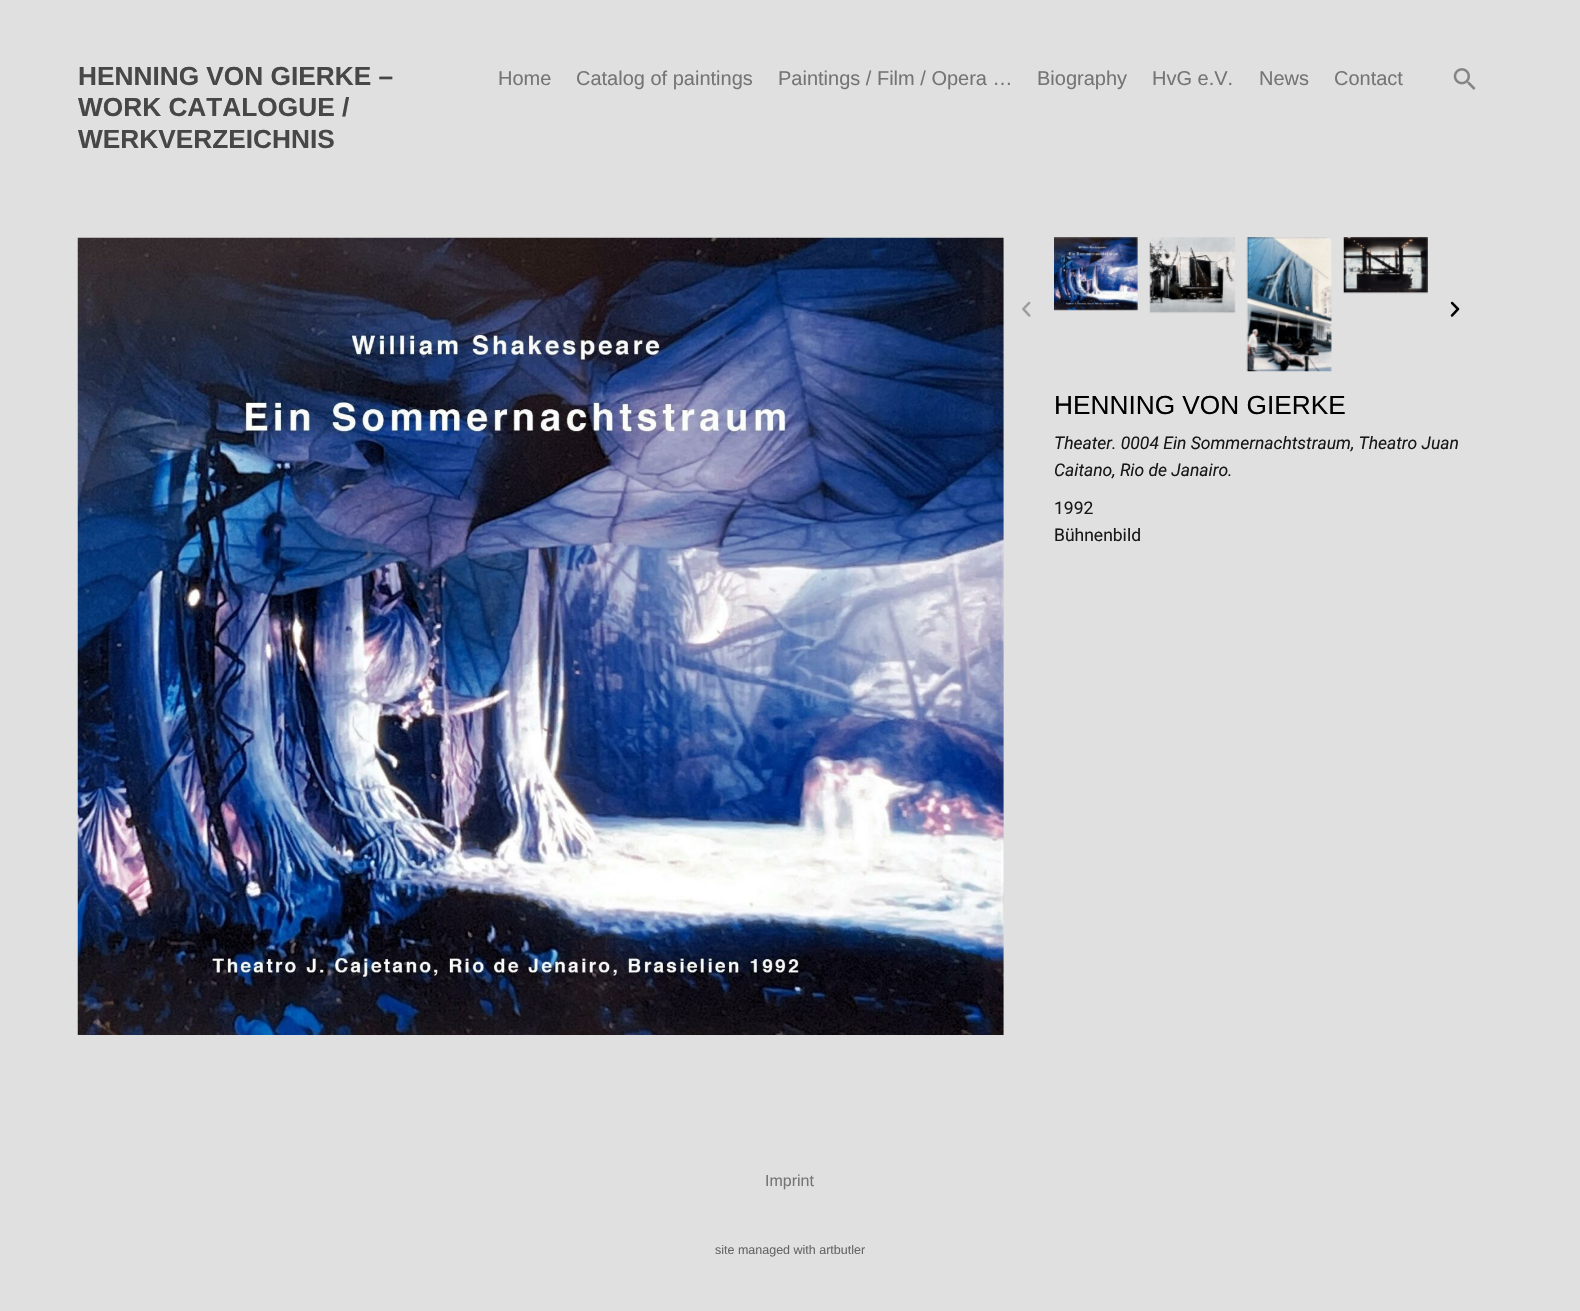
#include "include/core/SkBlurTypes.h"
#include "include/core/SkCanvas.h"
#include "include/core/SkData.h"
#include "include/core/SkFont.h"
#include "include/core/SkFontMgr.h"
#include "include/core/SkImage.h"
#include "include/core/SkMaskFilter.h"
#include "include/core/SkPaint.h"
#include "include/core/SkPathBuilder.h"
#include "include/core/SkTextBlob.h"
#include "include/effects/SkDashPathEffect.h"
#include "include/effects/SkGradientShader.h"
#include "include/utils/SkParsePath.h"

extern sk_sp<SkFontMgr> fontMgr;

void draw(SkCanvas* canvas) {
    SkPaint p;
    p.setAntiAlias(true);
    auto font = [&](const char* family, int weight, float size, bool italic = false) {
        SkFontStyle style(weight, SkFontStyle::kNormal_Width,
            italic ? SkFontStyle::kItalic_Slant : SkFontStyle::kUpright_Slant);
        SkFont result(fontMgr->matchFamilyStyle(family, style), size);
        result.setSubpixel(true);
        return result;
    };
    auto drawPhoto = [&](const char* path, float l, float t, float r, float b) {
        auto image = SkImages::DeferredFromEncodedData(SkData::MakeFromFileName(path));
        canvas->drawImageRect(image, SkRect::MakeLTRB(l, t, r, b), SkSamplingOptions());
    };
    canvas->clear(0xFFE0E0E0);
    auto font1 = font("Liberation Sans", 700, 26.25f);
    p.setColor(0xFF474747);
    {
        const struct { const char* s; float x, y; } items[] = {
            {"HENNING VON GIERKE –", 78, 85},
            {"WORK CATALOGUE /", 78, 116},
            {"WERKVERZEICHNIS", 78, 148},
        };
        for (auto [s, x, y] : items) {
            canvas->drawString(s, x, y, font1, p);
        }
    }
    auto font2 = font("Liberation Sans", 400, 20);
    p.setColor(0xFF757575);
    {
        const struct { const char* s; float x, y; } items[] = {
            {"Home", 498, 85},
            {"Catalog of paintings", 576, 85},
            {"Paintings / Film / Opera …", 778, 85},
            {"Biography", 1037, 85},
            {"HvG e.V.", 1152, 85},
            {"News", 1259, 85},
            {"Contact", 1334, 85},
        };
        for (auto [s, x, y] : items) {
            canvas->drawString(s, x, y, font2, p);
        }
    }
    drawPhoto("media/1.png", 1453, 68, 1476, 90);
    drawPhoto("media/2.png", 77, 237, 1004, 1035);
    drawPhoto("media/3.png", 1022, 301, 1031, 317);
    drawPhoto("media/4.png", 1054, 237, 1138, 311);
    drawPhoto("media/5.png", 1149, 237, 1236, 314);
    drawPhoto("media/6.png", 1246, 237, 1332, 372);
    drawPhoto("media/7.png", 1343, 237, 1428, 294);
    drawPhoto("media/8.png", 1450, 301, 1460, 317);
    auto font3 = font("Liberation Sans", 400, 26.25f);
    p.setColor(0xFF000000);
    canvas->drawString("HENNING VON GIERKE", 1054, 414, font3, p);
    auto font4 = font("Roboto", 400, 17.5f, true);
    p.setColor(0xFF181818);
    canvas->drawString("Theater. 0004 Ein Sommernachtstraum, Theatro Juan", 1054, 449, font4, p);
    canvas->drawString("Caitano, Rio de Janairo.", 1054, 476, font4, p);
    auto font5 = font("Roboto", 400, 17.5f);
    canvas->drawString("1992", 1054, 514, font5, p);
    canvas->drawString("Bühnenbild", 1054, 541, font5, p);
    auto font6 = font("Liberation Sans", 400, 16);
    p.setColor(0xFF757575);
    canvas->drawString("Imprint", 765, 1186, font6, p);
    auto font7 = font("Liberation Sans", 400, 12.5f);
    p.setColor(0xFF666666);
    canvas->drawString("site managed with artbutler", 715, 1254, font7, p);
}
